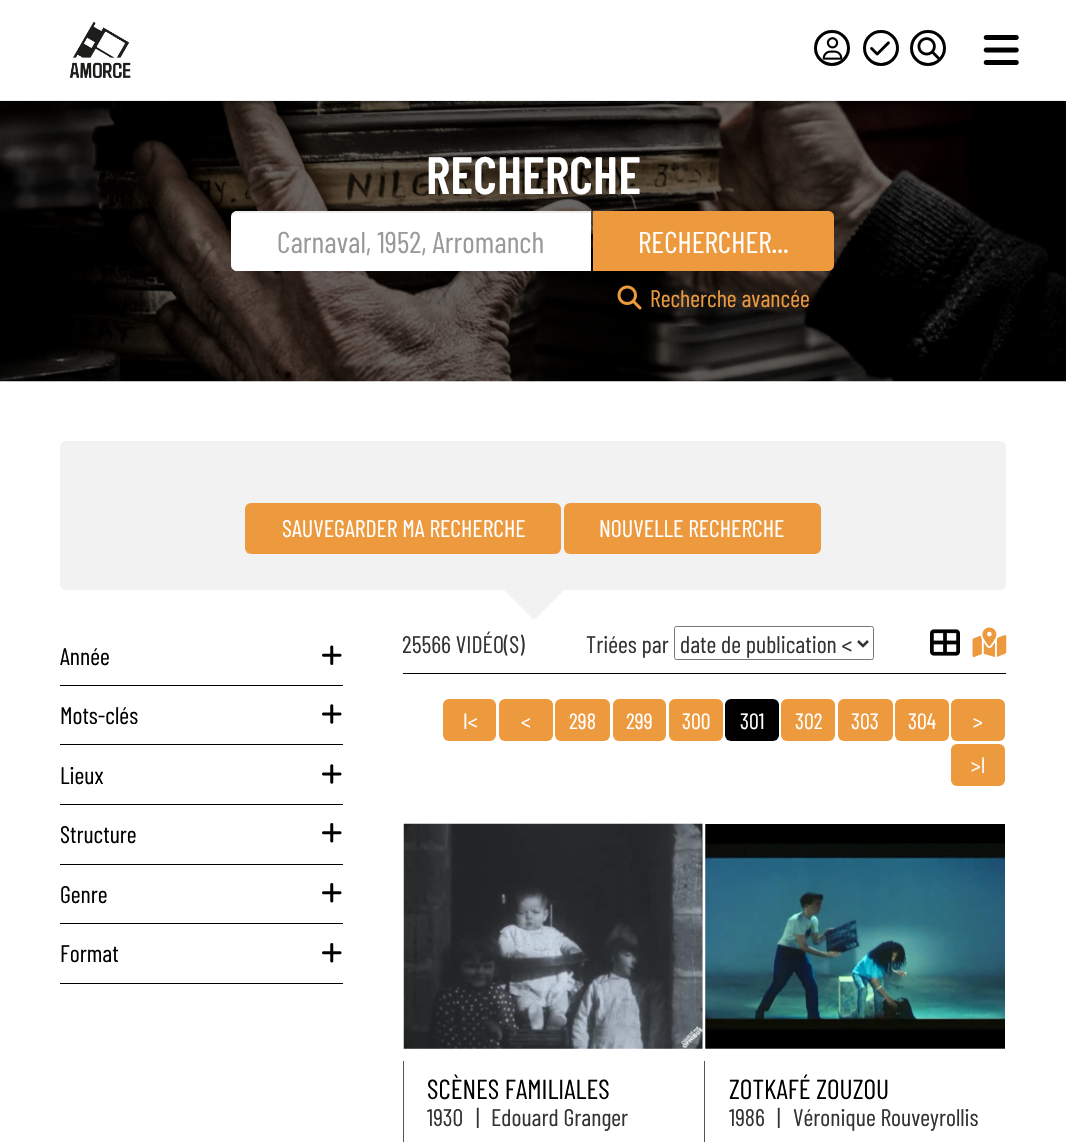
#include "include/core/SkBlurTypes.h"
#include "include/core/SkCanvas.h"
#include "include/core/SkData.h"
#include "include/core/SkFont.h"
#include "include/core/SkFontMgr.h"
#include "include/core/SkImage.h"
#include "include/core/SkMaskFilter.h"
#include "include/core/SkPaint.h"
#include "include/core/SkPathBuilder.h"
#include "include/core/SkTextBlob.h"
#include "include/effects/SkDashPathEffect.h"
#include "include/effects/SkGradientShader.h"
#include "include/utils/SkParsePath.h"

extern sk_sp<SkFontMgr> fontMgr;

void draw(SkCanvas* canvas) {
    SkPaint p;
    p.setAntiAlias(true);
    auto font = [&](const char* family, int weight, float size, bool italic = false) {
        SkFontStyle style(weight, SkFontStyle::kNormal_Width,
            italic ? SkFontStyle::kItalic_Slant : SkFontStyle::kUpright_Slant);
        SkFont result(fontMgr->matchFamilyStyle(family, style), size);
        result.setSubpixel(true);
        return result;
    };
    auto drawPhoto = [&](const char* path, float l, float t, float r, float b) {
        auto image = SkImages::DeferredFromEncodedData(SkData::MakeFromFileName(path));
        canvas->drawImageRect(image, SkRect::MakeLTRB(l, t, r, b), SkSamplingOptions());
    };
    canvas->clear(0xFFFFFFFF);
    drawPhoto("media/6.png", 0, 101, 1066, 382);
    p.setColor(0xFF000000);
    p.setMaskFilter(SkMaskFilter::MakeBlur(kNormal_SkBlurStyle, 3));
    canvas->drawRect(SkRect::MakeLTRB(8, 14, 1059, 100), p);
    p.setMaskFilter(nullptr);
    p.setColor(0xFFFFFFFF);
    canvas->drawRect(SkRect::MakeLTRB(1, 7, 1066, 100), p);
    p.setColor(0xFFEEEEEE);
    canvas->drawRect(SkRect::MakeLTRB(0, 100, 1066, 101), p);
    drawPhoto("media/1.png", 69, 22, 131, 78);
    p.setStyle(SkPaint::kStroke_Style);
    p.setStrokeWidth(3);
    p.setColor(0xFF000000);
    canvas->drawCircle(832, 48, 16.5f, p);
    drawPhoto("media/2.png", 822, 37, 843, 60);
    canvas->drawCircle(881, 48, 16.5f, p);
    drawPhoto("media/3.png", 870, 41, 890, 56);
    canvas->drawCircle(928, 48, 16.5f, p);
    drawPhoto("media/4.png", 917, 37, 940, 60);
    drawPhoto("media/5.png", 983, 35, 1019, 65);
    auto font1 = font("Barlow Condensed", 600, 52.5f);
    p.setStyle(SkPaint::kFill_Style);
    p.setColor(0xFFFFFFFF);
    canvas->drawString("RECHERCHE", 426, 194, font1, p);
    canvas->drawPath(SkPathBuilder().moveTo(237, 211).lineTo(591, 211).lineTo(591, 271).lineTo(237, 271).cubicTo(233.5f, 271, 231, 268.5f, 231, 265).lineTo(231, 217).cubicTo(231, 213.5f, 233.5f, 211, 237, 211).close().detach(), p);
    p.setColor(0x12000000);
    canvas->drawPath(SkPathBuilder().moveTo(238, 213).lineTo(591, 213).lineTo(591, 211).lineTo(237, 211).cubicTo(234, 211, 231, 214, 231, 217).lineTo(231, 219).cubicTo(231, 216, 234, 213, 238, 213).close().detach(), p);
    auto font2 = font("Barlow Condensed", 400, 30);
    p.setColor(0xFF999999);
    canvas->drawString("Carnaval, 1952, Arromanch", 277, 253, font2, p);
    p.setColor(0xFFED993E);
    canvas->drawPath(SkPathBuilder().moveTo(593, 211).lineTo(828, 211).cubicTo(831.5f, 211, 834, 213.5f, 834, 217).lineTo(834, 265).cubicTo(834, 268.5f, 831.5f, 271, 828, 271).lineTo(593, 271).close().detach(), p);
    p.setColor(0xFFFFFFFF);
    canvas->drawString("RECHERCHER...", 638, 253, font2, p);
    drawPhoto("media/7.png", 617, 285, 642, 310);
    auto font3 = font("Barlow Condensed", 400, 24);
    p.setColor(0xFFED993E);
    canvas->drawString("Recherche avancée", 650, 307, font3, p);
    p.setColor(0xFFF2F2F2);
    canvas->drawRoundRect(SkRect::MakeLTRB(60, 441, 1006, 590), 6, 6, p);
    p.setColor(0xFFED993E);
    canvas->drawRoundRect(SkRect::MakeLTRB(245, 503, 561, 554), 6, 6, p);
    p.setColor(0xFFFFFFFF);
    canvas->drawString("SAUVEGARDER MA RECHERCHE", 282, 537, font3, p);
    p.setColor(0xFFED993E);
    canvas->drawRoundRect(SkRect::MakeLTRB(564, 503, 821, 554), 6, 6, p);
    p.setColor(0xFFFFFFFF);
    canvas->drawString("NOUVELLE RECHERCHE", 599, 537, font3, p);
    p.setColor(0xFFF2F2F2);
    canvas->drawPath(SkPathBuilder().moveTo(504, 590).lineTo(564, 590).lineTo(534, 620).close().detach(), p);
    p.setColor(0xFF000000);
    canvas->drawRect(SkRect::MakeLTRB(60, 685, 343, 686), p);
    canvas->drawString("Année", 60, 665, font3, p);
    drawPhoto("media/8.png", 322, 645, 342, 665);
    canvas->drawRect(SkRect::MakeLTRB(60, 744, 343, 745), p);
    canvas->drawString("Mots-clés", 60, 724, font3, p);
    drawPhoto("media/9.png", 322, 704, 342, 724);
    canvas->drawRect(SkRect::MakeLTRB(60, 804, 343, 805), p);
    canvas->drawString("Lieux", 60, 784, font3, p);
    drawPhoto("media/9.png", 322, 764, 342, 784);
    canvas->drawRect(SkRect::MakeLTRB(60, 864, 343, 865), p);
    canvas->drawString("Structure", 60, 843, font3, p);
    drawPhoto("media/10.png", 322, 823, 342, 843);
    canvas->drawRect(SkRect::MakeLTRB(60, 923, 343, 924), p);
    canvas->drawString("Genre", 60, 903, font3, p);
    drawPhoto("media/10.png", 322, 883, 342, 903);
    canvas->drawRect(SkRect::MakeLTRB(60, 983, 343, 984), p);
    canvas->drawString("Format", 60, 962, font3, p);
    drawPhoto("media/10.png", 322, 943, 342, 963);
    canvas->drawRect(SkRect::MakeLTRB(403, 673, 1006, 674), p);
    p.setColor(0xFF333333);
    canvas->drawString("25566 VIDÉO(S)", 402, 653, font3, p);
    canvas->drawString("Triées par", 586, 653, font3, p);
    p.setStyle(SkPaint::kStroke_Style);
    p.setStrokeWidth(1);
    p.setColor(0xFF767676);
    canvas->drawRoundRect(SkRect::MakeLTRB(674.5f, 626.5f, 873.5f, 659.5f), 2, 2, p);
    p.setStrokeWidth(2.5f);
    p.setColor(0xFF333333);
    canvas->drawPath(SkPathBuilder().moveTo(858, 641).lineTo(863, 646).lineTo(868, 641).detach(), p);
    p.setStyle(SkPaint::kFill_Style);
    canvas->drawString("date de publication <", 680, 653, font3, p);
    drawPhoto("media/11.png", 930, 629, 960, 656);
    drawPhoto("media/12.png", 972, 627, 1007, 657);
    p.setColor(0xFFED993E);
    canvas->drawRoundRect(SkRect::MakeLTRB(443, 699, 496, 741), 6, 6, p);
    auto font4 = font("Barlow Condensed", 400, 22);
    p.setColor(0xFFFFFFFF);
    canvas->drawString("I<", 463, 729, font4, p);
    p.setColor(0xFFED993E);
    canvas->drawRoundRect(SkRect::MakeLTRB(499, 699, 553, 741), 6, 6, p);
    p.setColor(0xFFFFFFFF);
    canvas->drawString("<", 521, 729, font4, p);
    p.setColor(0xFFED993E);
    canvas->drawRoundRect(SkRect::MakeLTRB(555, 699, 610, 741), 6, 6, p);
    p.setColor(0xFFFFFFFF);
    canvas->drawString("298", 569, 729, font4, p);
    p.setColor(0xFFED993E);
    canvas->drawRoundRect(SkRect::MakeLTRB(613, 699, 666, 741), 6, 6, p);
    p.setColor(0xFFFFFFFF);
    canvas->drawString("299", 626, 729, font4, p);
    p.setColor(0xFFED993E);
    canvas->drawRoundRect(SkRect::MakeLTRB(669, 699, 723, 741), 6, 6, p);
    p.setColor(0xFFFFFFFF);
    canvas->drawString("300", 682, 729, font4, p);
    p.setColor(0xFF000000);
    canvas->drawRoundRect(SkRect::MakeLTRB(725, 699, 779, 741), 6, 6, p);
    p.setColor(0xFFFFFFFF);
    canvas->drawString("301", 740, 729, font4, p);
    p.setColor(0xFFED993E);
    canvas->drawRoundRect(SkRect::MakeLTRB(781, 699, 835, 741), 6, 6, p);
    p.setColor(0xFFFFFFFF);
    canvas->drawString("302", 795, 729, font4, p);
    p.setColor(0xFFED993E);
    canvas->drawRoundRect(SkRect::MakeLTRB(838, 699, 893, 741), 6, 6, p);
    p.setColor(0xFFFFFFFF);
    canvas->drawString("303", 851, 729, font4, p);
    p.setColor(0xFFED993E);
    canvas->drawRoundRect(SkRect::MakeLTRB(895, 699, 949, 741), 6, 6, p);
    p.setColor(0xFFFFFFFF);
    canvas->drawString("304", 908, 729, font4, p);
    p.setColor(0xFFED993E);
    canvas->drawRoundRect(SkRect::MakeLTRB(951, 699, 1005, 741), 6, 6, p);
    p.setColor(0xFFFFFFFF);
    canvas->drawString(">", 973, 729, font4, p);
    p.setColor(0xFFED993E);
    canvas->drawRoundRect(SkRect::MakeLTRB(951, 744, 1005, 786), 6, 6, p);
    p.setColor(0xFFFFFFFF);
    canvas->drawString(">I", 971, 773, font4, p);
    drawPhoto("media/13.png", 403, 823, 703, 1049);
    p.setColor(0xFF555555);
    canvas->drawRect(SkRect::MakeLTRB(403, 1061, 404, 1142), p);
    auto font5 = font("Barlow Condensed", 400, 27.5f);
    p.setColor(0xFF000000);
    canvas->drawString("SCÈNES FAMILIALES", 427, 1099, font5, p);
    p.setColor(0xFF333333);
    {
        const struct { const char* s; float x, y; } items[] = {
            {"1930", 427, 1126},
            {"|", 476, 1126},
            {"Edouard Granger", 491, 1126},
        };
        for (auto [s, x, y] : items) {
            canvas->drawString(s, x, y, font3, p);
        }
    }
    drawPhoto("media/14.png", 705, 824, 1005, 1049);
    p.setColor(0xFF555555);
    canvas->drawRect(SkRect::MakeLTRB(704, 1061, 705, 1142), p);
    p.setColor(0xFF000000);
    canvas->drawString("ZOTKAFÉ ZOUZOU", 729, 1099, font5, p);
    p.setColor(0xFF333333);
    {
        const struct { const char* s; float x, y; } items[] = {
            {"1986", 729, 1126},
            {"|", 777, 1126},
            {"Véronique Rouveyrollis", 793, 1126},
        };
        for (auto [s, x, y] : items) {
            canvas->drawString(s, x, y, font3, p);
        }
    }
}
